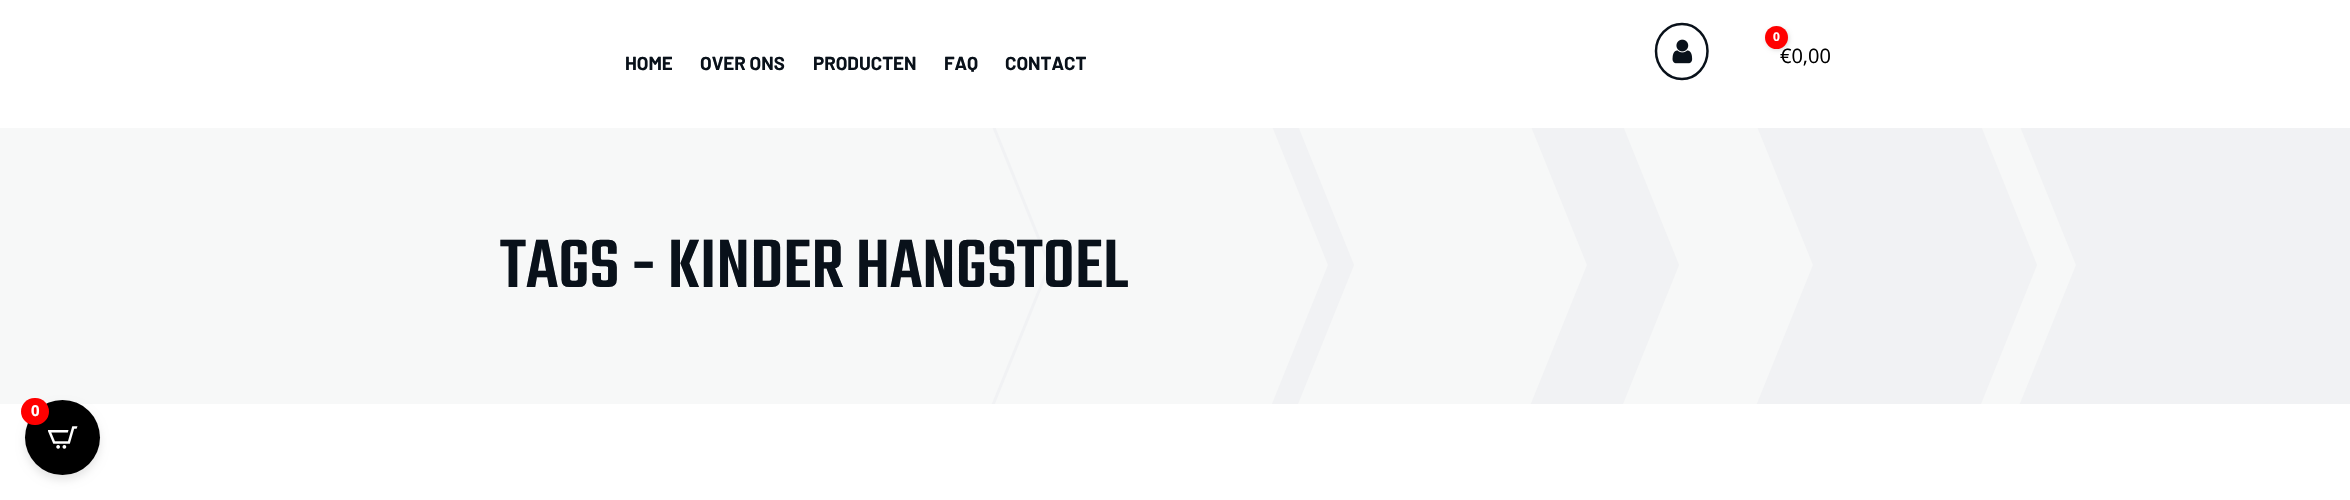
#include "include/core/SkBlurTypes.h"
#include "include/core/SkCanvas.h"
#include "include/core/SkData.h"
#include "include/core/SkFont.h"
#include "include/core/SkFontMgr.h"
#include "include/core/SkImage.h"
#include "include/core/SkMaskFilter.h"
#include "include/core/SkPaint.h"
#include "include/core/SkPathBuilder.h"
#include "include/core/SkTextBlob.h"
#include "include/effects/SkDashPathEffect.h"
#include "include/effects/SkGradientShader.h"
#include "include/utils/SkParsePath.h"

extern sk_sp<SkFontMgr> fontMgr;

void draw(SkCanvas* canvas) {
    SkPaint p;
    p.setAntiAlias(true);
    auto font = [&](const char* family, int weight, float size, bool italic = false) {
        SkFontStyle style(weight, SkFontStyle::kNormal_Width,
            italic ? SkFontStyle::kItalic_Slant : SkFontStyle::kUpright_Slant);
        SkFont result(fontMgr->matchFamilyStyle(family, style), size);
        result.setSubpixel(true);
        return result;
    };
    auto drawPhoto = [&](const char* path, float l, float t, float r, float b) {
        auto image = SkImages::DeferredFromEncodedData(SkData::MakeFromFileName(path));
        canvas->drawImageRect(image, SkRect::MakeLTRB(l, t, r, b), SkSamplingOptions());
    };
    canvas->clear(0xFFFFFFFF);
    auto font1 = font("Barlow", 700, 18.75f);
    p.setColor(0xFF09111A);
    {
        const struct { const char* s; float x, y; } items[] = {
            {"HOME", 625, 70},
            {"OVER ONS", 700, 70},
            {"PRODUCTEN", 813, 70},
            {"FAQ", 944, 70},
            {"CONTACT", 1005, 70},
        };
        for (auto [s, x, y] : items) {
            canvas->drawString(s, x, y, font1, p);
        }
    }
    p.setStyle(SkPaint::kStroke_Style);
    p.setStrokeWidth(2.5f);
    canvas->drawPath(SkPathBuilder().moveTo(1682, 24).cubicTo(1696, 24, 1707.5f, 36, 1707.5f, 51).cubicTo(1707.5f, 66.5f, 1696, 79, 1682, 79).cubicTo(1667.5f, 79, 1656, 66.5f, 1656, 51).cubicTo(1656, 36, 1667.5f, 24, 1682, 24).close().detach(), p);
    drawPhoto("media/1.png", 1672, 39, 1693, 64);
    p.setStyle(SkPaint::kFill_Style);
    p.setColor(0x26000000);
    p.setMaskFilter(SkMaskFilter::MakeBlur(kNormal_SkBlurStyle, 2));
    canvas->drawRoundRect(SkRect::MakeLTRB(1766, 28, 1789, 50), 11, 11, p);
    p.setMaskFilter(nullptr);
    auto font2 = font("Open Sans", 400, 20);
    p.setColor(0xFF000000);
    canvas->drawString("€0,00", 1780, 63, font2, p);
    p.setColor(0xFFFF0000);
    canvas->drawCircle(1776.5f, 37.5f, 11.5f, p);
    auto font3 = font("Open Sans", 700, 12);
    p.setColor(0xFFFFFFFF);
    canvas->drawString("0", 1773, 41, font3, p);
    p.setColor(0xFFF1F2F4);
    canvas->drawRect(SkRect::MakeLTRB(991, 128, 2350, 404), p);
    canvas->save();
    canvas->clipRect(SkRect::MakeLTRB(0, 128, 2350, 404));
    p.setColor(0xFFF7F8F8);
    canvas->drawPath(SkPathBuilder().moveTo(1048, 265).lineTo(692, 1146).lineTo(0, 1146).lineTo(0, -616).lineTo(692, -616).close().moveTo(1231, -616).lineTo(999, -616).lineTo(1354, 265).lineTo(999, 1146).lineTo(1231, 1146).lineTo(1587, 265).close().moveTo(1457, -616).lineTo(1324, -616).lineTo(1679, 265).lineTo(1324, 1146).lineTo(1457, 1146).lineTo(1813, 265).close().moveTo(973, -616).lineTo(695, -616).lineTo(1051, 265).lineTo(695, 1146).lineTo(973, 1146).lineTo(1328, 265).close().moveTo(1720, -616).lineTo(1682, -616).lineTo(2037, 265).lineTo(1682, 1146).lineTo(1720, 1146).lineTo(2076, 265).close().detach(), p);
    canvas->restore();
    auto font4 = font("Teko", 300, 75);
    p.setColor(0xFF09111A);
    canvas->drawString("TAGS - KINDER HANGSTOEL", 500, 287, font4, p);
    p.setColor(0x1A000000);
    p.setMaskFilter(SkMaskFilter::MakeBlur(kNormal_SkBlurStyle, 4.5f));
    canvas->drawRoundRect(SkRect::MakeLTRB(25, 405, 100, 480), 37.5f, 37.5f, p);
    p.setMaskFilter(nullptr);
    p.setColor(0xFF000000);
    canvas->drawCircle(62.5f, 437.5f, 37.5f, p);
    p.setColor(0xFFFF0000);
    canvas->drawRoundRect(SkRect::MakeLTRB(21, 398, 49, 425), 13.5f, 13.5f, p);
    auto font5 = font("Open Sans", 700, 15);
    p.setColor(0xFFFFFFFF);
    canvas->drawString("0", 31, 416, font5, p);
    drawPhoto("media/2.png", 48, 426, 78, 449);
}
